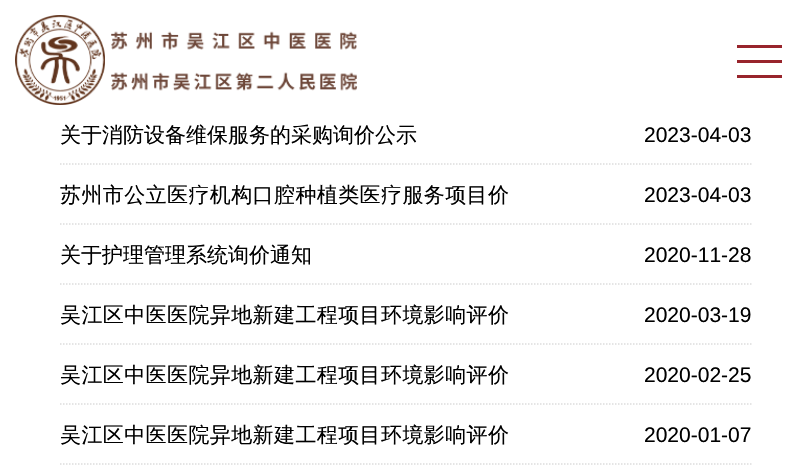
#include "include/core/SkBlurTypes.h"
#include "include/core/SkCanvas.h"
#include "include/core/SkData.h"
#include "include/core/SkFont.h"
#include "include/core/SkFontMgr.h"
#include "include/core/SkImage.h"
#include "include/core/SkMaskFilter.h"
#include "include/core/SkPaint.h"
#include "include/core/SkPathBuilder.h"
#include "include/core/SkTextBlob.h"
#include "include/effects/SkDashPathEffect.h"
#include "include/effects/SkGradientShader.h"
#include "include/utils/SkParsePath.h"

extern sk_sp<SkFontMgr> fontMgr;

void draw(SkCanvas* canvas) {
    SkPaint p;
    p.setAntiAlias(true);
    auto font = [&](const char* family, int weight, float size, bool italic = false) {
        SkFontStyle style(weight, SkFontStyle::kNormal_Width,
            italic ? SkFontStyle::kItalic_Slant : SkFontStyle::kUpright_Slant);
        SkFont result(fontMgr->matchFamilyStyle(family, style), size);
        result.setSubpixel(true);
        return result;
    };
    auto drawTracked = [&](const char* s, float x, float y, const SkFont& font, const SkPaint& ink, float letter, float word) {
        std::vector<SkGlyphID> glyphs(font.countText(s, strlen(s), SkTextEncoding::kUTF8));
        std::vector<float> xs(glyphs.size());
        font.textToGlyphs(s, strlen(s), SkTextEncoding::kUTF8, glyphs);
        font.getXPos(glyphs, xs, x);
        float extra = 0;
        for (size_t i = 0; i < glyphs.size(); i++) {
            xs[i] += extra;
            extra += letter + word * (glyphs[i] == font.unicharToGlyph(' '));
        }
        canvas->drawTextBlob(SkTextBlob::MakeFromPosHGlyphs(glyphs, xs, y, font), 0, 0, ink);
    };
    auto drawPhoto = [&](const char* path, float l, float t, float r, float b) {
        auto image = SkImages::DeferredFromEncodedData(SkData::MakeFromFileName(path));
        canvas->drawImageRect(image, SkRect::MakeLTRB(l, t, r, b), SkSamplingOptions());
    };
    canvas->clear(0xFFFFFFFF);
    drawPhoto("media/1.png", 15, 15, 358, 105);
    {
        const struct { float l, t, r, b; SkColor color; } items[] = {
            {737, 45, 782, 48, 0xFF98242C},
            {737, 60, 782, 63, 0xFF98242C},
            {737, 75, 782, 78, 0xFF98242C},
        };
        for (auto [l, t, r, b, color] : items) {
            p.setColor(color);
            canvas->drawRect(SkRect::MakeLTRB(l, t, r, b), p);
        }
    }
    p.setStyle(SkPaint::kStroke_Style);
    p.setStrokeWidth(1.5f);
    p.setColor(0xFFDDDDDD);
    p.setPathEffect(SkDashPathEffect::Make({{1.5f, 1.5f}}, 0));
    canvas->drawPath(SkPathBuilder().moveTo(60, 164).lineTo(751.5f, 164).detach(), p);
    p.setPathEffect(nullptr);
    auto font1 = font("WenQuanYi Zen Hei", 500, 21);
    p.setStyle(SkPaint::kFill_Style);
    p.setColor(0xFF000000);
    canvas->drawString("关于消防设备维保服务的采购询价公示", 60, 142, font1, p);
    auto font2 = font("Liberation Sans", 400, 21);
    canvas->drawString("2023-04-03", 644, 142, font2, p);
    p.setStyle(SkPaint::kStroke_Style);
    p.setColor(0xFFDDDDDD);
    p.setPathEffect(SkDashPathEffect::Make({{1.5f, 1.5f}}, 0));
    canvas->drawPath(SkPathBuilder().moveTo(60, 224).lineTo(751.5f, 224).detach(), p);
    p.setPathEffect(nullptr);
    p.setStyle(SkPaint::kFill_Style);
    p.setColor(0xFF000000);
    drawTracked("苏州市公立医疗机构口腔种植类医疗服务项目价", 60, 202, font1, p, 0.4f, 0);
    canvas->drawString("2023-04-03", 644, 202, font2, p);
    p.setStyle(SkPaint::kStroke_Style);
    p.setColor(0xFFDDDDDD);
    p.setPathEffect(SkDashPathEffect::Make({{1.5f, 1.5f}}, 0));
    canvas->drawPath(SkPathBuilder().moveTo(60, 284).lineTo(751.5f, 284).detach(), p);
    p.setPathEffect(nullptr);
    p.setStyle(SkPaint::kFill_Style);
    p.setColor(0xFF000000);
    canvas->drawString("关于护理管理系统询价通知", 60, 262, font1, p);
    canvas->drawString("2020-11-28", 644, 262, font2, p);
    p.setStyle(SkPaint::kStroke_Style);
    p.setColor(0xFFDDDDDD);
    p.setPathEffect(SkDashPathEffect::Make({{1.5f, 1.5f}}, 0));
    canvas->drawPath(SkPathBuilder().moveTo(60, 344).lineTo(751.5f, 344).detach(), p);
    p.setPathEffect(nullptr);
    p.setStyle(SkPaint::kFill_Style);
    p.setColor(0xFF000000);
    drawTracked("吴江区中医医院异地新建工程项目环境影响评价", 60, 322, font1, p, 0.4f, 0);
    canvas->drawString("2020-03-19", 644, 322, font2, p);
    p.setStyle(SkPaint::kStroke_Style);
    p.setColor(0xFFDDDDDD);
    p.setPathEffect(SkDashPathEffect::Make({{1.5f, 1.5f}}, 0));
    canvas->drawPath(SkPathBuilder().moveTo(60, 404).lineTo(751.5f, 404).detach(), p);
    p.setPathEffect(nullptr);
    p.setStyle(SkPaint::kFill_Style);
    p.setColor(0xFF000000);
    drawTracked("吴江区中医医院异地新建工程项目环境影响评价", 60, 382, font1, p, 0.4f, 0);
    canvas->drawString("2020-02-25", 644, 382, font2, p);
    p.setStyle(SkPaint::kStroke_Style);
    p.setColor(0xFFDDDDDD);
    p.setPathEffect(SkDashPathEffect::Make({{1.5f, 1.5f}}, 0));
    canvas->drawPath(SkPathBuilder().moveTo(60, 464).lineTo(751.5f, 464).detach(), p);
    p.setPathEffect(nullptr);
    p.setStyle(SkPaint::kFill_Style);
    p.setColor(0xFF000000);
    drawTracked("吴江区中医医院异地新建工程项目环境影响评价", 60, 442, font1, p, 0.4f, 0);
    canvas->drawString("2020-01-07", 644, 442, font2, p);
}
